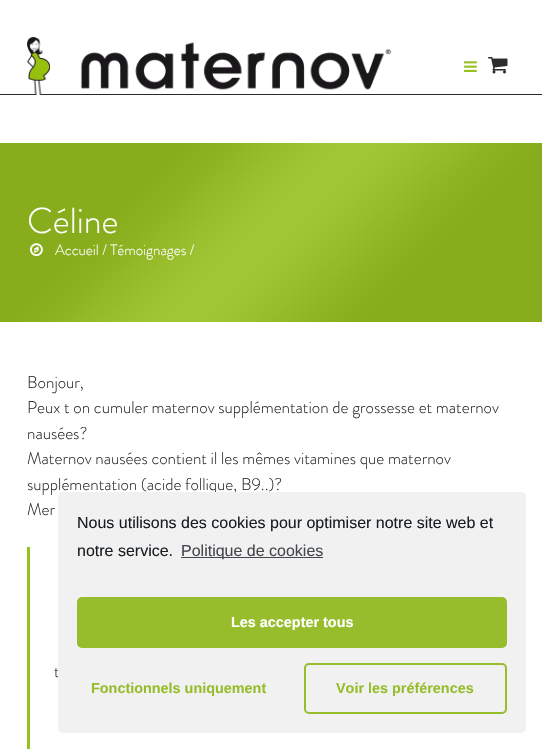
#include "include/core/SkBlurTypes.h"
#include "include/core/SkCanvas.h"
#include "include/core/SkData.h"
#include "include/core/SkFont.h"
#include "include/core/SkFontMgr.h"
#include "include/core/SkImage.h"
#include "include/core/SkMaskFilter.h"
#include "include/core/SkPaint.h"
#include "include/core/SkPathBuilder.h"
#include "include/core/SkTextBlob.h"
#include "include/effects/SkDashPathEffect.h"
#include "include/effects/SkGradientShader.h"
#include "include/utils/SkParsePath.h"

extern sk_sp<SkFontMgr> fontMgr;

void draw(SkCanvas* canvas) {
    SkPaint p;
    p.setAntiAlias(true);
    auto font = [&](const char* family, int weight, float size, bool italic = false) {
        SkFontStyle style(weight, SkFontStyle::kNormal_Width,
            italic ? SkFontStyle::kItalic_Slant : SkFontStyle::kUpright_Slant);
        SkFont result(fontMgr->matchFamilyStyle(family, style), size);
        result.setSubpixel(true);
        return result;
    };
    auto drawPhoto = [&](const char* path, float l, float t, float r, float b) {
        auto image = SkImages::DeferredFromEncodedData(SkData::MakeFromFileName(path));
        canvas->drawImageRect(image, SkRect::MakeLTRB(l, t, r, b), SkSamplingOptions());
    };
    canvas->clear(0xFFFFFFFF);
    p.setColor(0xFF282928);
    canvas->drawRect(SkRect::MakeLTRB(0, 94, 542, 95), p);
    drawPhoto("media/1.png", 27, 37, 392, 95);
    drawPhoto("media/2.png", 464, 61, 477, 72);
    drawPhoto("media/3.png", 488, 57, 508, 74);
    p.setColor(0xFF96C11F);
    canvas->drawRect(SkRect::MakeLTRB(0, 143, 542, 322), p);
    drawPhoto("media/4.png", 0, 143, 542, 322);
    auto font1 = font("Brandon Grotesque", 300, 36);
    p.setColor(0xFFFFFFFF);
    canvas->drawString("Céline", 27, 233, font1, p);
    drawPhoto("media/5.png", 30, 243, 43, 257);
    auto font2 = font("Brandon Grotesque", 300, 15);
    canvas->drawString("Accueil / Témoignages /", 55, 255, font2, p);
    auto font3 = font("Brandon Grotesque", 300, 17);
    p.setColor(0xFF2C2E2C);
    {
        const struct { const char* s; float x, y; } items[] = {
            {"Bonjour,", 27, 388},
            {"Peux t on cumuler maternov supplémentation de grossesse et maternov", 27, 413},
            {"nausées?", 27, 439},
            {"Maternov nausées contient il les mêmes vitamines que maternov", 27, 464},
            {"supplémentation (acide follique, B9..)?", 27, 490},
            {"Mer", 27, 515},
        };
        for (auto [s, x, y] : items) {
            canvas->drawString(s, x, y, font3, p);
        }
    }
    p.setColor(0xFF96C11F);
    canvas->drawRect(SkRect::MakeLTRB(27, 547, 30, 749), p);
    p.setColor(0xFF2C2E2C);
    canvas->drawString("t", 54, 677, font3, p);
    p.setColor(0xFFF1F1F1);
    canvas->drawRoundRect(SkRect::MakeLTRB(58, 492, 526, 733), 5, 5, p);
    auto font4 = font("Liberation Sans", 400, 16);
    p.setColor(0xFF191E23);
    canvas->drawString("Nous utilisons des cookies pour optimiser notre site web et", 77, 528, font4, p);
    canvas->drawString("notre service.", 77, 556, font4, p);
    p.setColor(0xFF44484C);
    canvas->drawRect(SkRect::MakeLTRB(181, 557, 323, 558), p);
    canvas->drawString("Politique de cookies", 181, 556, font4, p);
    p.setColor(0xFF97BD2C);
    canvas->drawRoundRect(SkRect::MakeLTRB(78, 598, 506, 647), 4, 4, p);
    p.setStyle(SkPaint::kStroke_Style);
    p.setStrokeWidth(2);
    canvas->drawRoundRect(SkRect::MakeLTRB(78, 598, 506, 647), 4, 4, p);
    auto font5 = font("Liberation Sans", 700, 14.4f);
    p.setStyle(SkPaint::kFill_Style);
    p.setColor(0xFFFFFFFF);
    canvas->drawString("Les accepter tous", 231, 627, font5, p);
    p.setColor(0xFF97BD2C);
    canvas->drawString("Fonctionnels uniquement", 91, 693, font5, p);
    p.setStyle(SkPaint::kStroke_Style);
    canvas->drawRoundRect(SkRect::MakeLTRB(305, 664, 506, 713), 4, 4, p);
    p.setStyle(SkPaint::kFill_Style);
    canvas->drawString("Voir les préférences", 336, 693, font5, p);
}
